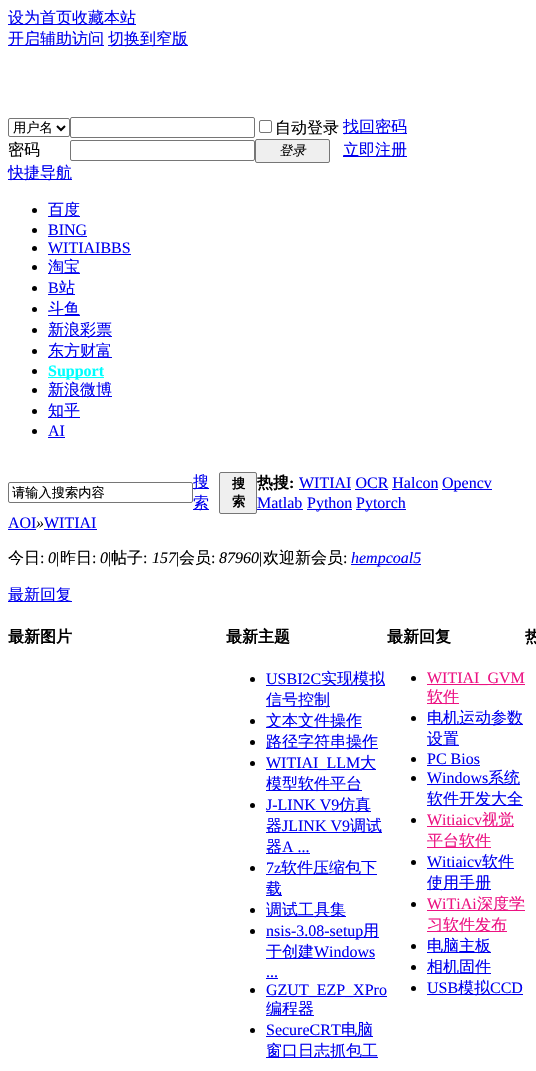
#include "include/core/SkBlurTypes.h"
#include "include/core/SkCanvas.h"
#include "include/core/SkData.h"
#include "include/core/SkFont.h"
#include "include/core/SkFontMgr.h"
#include "include/core/SkImage.h"
#include "include/core/SkMaskFilter.h"
#include "include/core/SkPaint.h"
#include "include/core/SkPathBuilder.h"
#include "include/core/SkTextBlob.h"
#include "include/effects/SkDashPathEffect.h"
#include "include/effects/SkGradientShader.h"
#include "include/utils/SkParsePath.h"

extern sk_sp<SkFontMgr> fontMgr;

void draw(SkCanvas* canvas) {
    SkPaint p;
    p.setAntiAlias(true);
    auto font = [&](const char* family, int weight, float size, bool italic = false) {
        SkFontStyle style(weight, SkFontStyle::kNormal_Width,
            italic ? SkFontStyle::kItalic_Slant : SkFontStyle::kUpright_Slant);
        SkFont result(fontMgr->matchFamilyStyle(family, style), size);
        result.setSubpixel(true);
        return result;
    };
    canvas->clear(0xFFFFFFFF);
    p.setColor(0xFF0000EE);
    canvas->drawRect(SkRect::MakeLTRB(8, 24, 136, 25), p);
    auto font1 = font("WenQuanYi Zen Hei", 500, 16);
    canvas->drawString("设为首页收藏本站", 8, 23, font1, p);
    canvas->drawRect(SkRect::MakeLTRB(8, 45, 104, 46), p);
    canvas->drawString("开启辅助访问", 8, 44, font1, p);
    canvas->drawRect(SkRect::MakeLTRB(108, 45, 188, 46), p);
    canvas->drawString("切换到窄版", 108, 44, font1, p);
    p.setStyle(SkPaint::kStroke_Style);
    p.setStrokeWidth(1);
    p.setColor(0xFF767676);
    canvas->drawRoundRect(SkRect::MakeLTRB(8.5f, 118.5f, 69.5f, 136.5f), 1.5f, 1.5f, p);
    p.setStrokeWidth(2);
    p.setColor(0xFF000000);
    canvas->drawPath(SkPathBuilder().moveTo(57, 126).lineTo(61, 130).lineTo(65, 126).detach(), p);
    auto font2 = font("WenQuanYi Zen Hei", 500, 13.25f);
    p.setStyle(SkPaint::kFill_Style);
    canvas->drawString("用户名", 13, 132, font2, p);
    p.setStyle(SkPaint::kStroke_Style);
    p.setStrokeWidth(1);
    p.setColor(0xFF767676);
    canvas->drawRoundRect(SkRect::MakeLTRB(70.5f, 117.5f, 254.5f, 137.5f), 1.5f, 1.5f, p);
    canvas->drawRoundRect(SkRect::MakeLTRB(259.5f, 120.5f, 271.5f, 132.5f), 1.5f, 1.5f, p);
    p.setStyle(SkPaint::kFill_Style);
    p.setColor(0xFF000000);
    canvas->drawString("自动登录", 275, 133, font1, p);
    p.setColor(0xFF0000EE);
    canvas->drawRect(SkRect::MakeLTRB(343, 133, 407, 134), p);
    canvas->drawString("找回密码", 343, 132, font1, p);
    p.setColor(0xFF000000);
    canvas->drawString("密码", 8, 155, font1, p);
    p.setStyle(SkPaint::kStroke_Style);
    p.setColor(0xFF767676);
    canvas->drawRoundRect(SkRect::MakeLTRB(70.5f, 140.5f, 254.5f, 160.5f), 1.5f, 1.5f, p);
    p.setStyle(SkPaint::kFill_Style);
    p.setColor(0xFFEFEFEF);
    canvas->drawRoundRect(SkRect::MakeLTRB(255.5f, 139.5f, 329.5f, 162.5f), 1.5f, 1.5f, p);
    p.setStyle(SkPaint::kStroke_Style);
    p.setColor(0xFF767676);
    canvas->drawRoundRect(SkRect::MakeLTRB(255.5f, 139.5f, 329.5f, 162.5f), 1.5f, 1.5f, p);
    auto font3 = font("WenQuanYi Zen Hei", 500, 13.25f, true);
    p.setStyle(SkPaint::kFill_Style);
    p.setColor(0xFF000000);
    canvas->drawString("登录", 279, 155, font3, p);
    p.setColor(0xFF0000EE);
    canvas->drawRect(SkRect::MakeLTRB(343, 156, 407, 157), p);
    canvas->drawString("立即注册", 343, 155, font1, p);
    canvas->drawRect(SkRect::MakeLTRB(8, 179, 72, 180), p);
    canvas->drawString("快捷导航", 8, 178, font1, p);
    p.setColor(0xFF000000);
    canvas->drawCircle(34.5f, 210.5f, 2.5f, p);
    p.setColor(0xFF0000EE);
    canvas->drawRect(SkRect::MakeLTRB(48, 216, 80, 217), p);
    canvas->drawString("百度", 48, 215, font1, p);
    p.setColor(0xFF000000);
    canvas->drawCircle(34.5f, 230.5f, 2.5f, p);
    auto font4 = font("Liberation Serif", 400, 16);
    p.setColor(0xFF0000EE);
    canvas->drawString("BING", 48, 235, font4, p);
    canvas->drawRect(SkRect::MakeLTRB(48, 236, 87, 237), p);
    p.setColor(0xFF000000);
    canvas->drawCircle(34.5f, 248.5f, 2.5f, p);
    p.setColor(0xFF0000EE);
    canvas->drawString("WITIAIBBS", 48, 253, font4, p);
    canvas->drawRect(SkRect::MakeLTRB(48, 254, 131, 255), p);
    p.setColor(0xFF000000);
    canvas->drawCircle(34.5f, 267.5f, 2.5f, p);
    p.setColor(0xFF0000EE);
    canvas->drawRect(SkRect::MakeLTRB(48, 273, 80, 274), p);
    canvas->drawString("淘宝", 48, 272, font1, p);
    p.setColor(0xFF000000);
    canvas->drawCircle(34.5f, 288.5f, 2.5f, p);
    p.setColor(0xFF0000EE);
    canvas->drawString("B", 48, 293, font4, p);
    canvas->drawRect(SkRect::MakeLTRB(48, 294, 75, 295), p);
    canvas->drawString("站", 59, 293, font1, p);
    p.setColor(0xFF000000);
    canvas->drawCircle(34.5f, 309.5f, 2.5f, p);
    p.setColor(0xFF0000EE);
    canvas->drawRect(SkRect::MakeLTRB(48, 315, 80, 316), p);
    canvas->drawString("斗鱼", 48, 314, font1, p);
    p.setColor(0xFF000000);
    canvas->drawCircle(34.5f, 330.5f, 2.5f, p);
    p.setColor(0xFF0000EE);
    canvas->drawRect(SkRect::MakeLTRB(48, 336, 112, 337), p);
    canvas->drawString("新浪彩票", 48, 335, font1, p);
    p.setColor(0xFF000000);
    canvas->drawCircle(34.5f, 351.5f, 2.5f, p);
    p.setColor(0xFF0000EE);
    canvas->drawRect(SkRect::MakeLTRB(48, 357, 112, 358), p);
    canvas->drawString("东方财富", 48, 356, font1, p);
    p.setColor(0xFF000000);
    canvas->drawCircle(34.5f, 371.5f, 2.5f, p);
    p.setColor(0xFF00FFFF);
    canvas->drawRect(SkRect::MakeLTRB(48, 377, 104, 378), p);
    auto font5 = font("Liberation Serif", 700, 16);
    canvas->drawString("Support", 48, 376, font5, p);
    p.setColor(0xFF000000);
    canvas->drawCircle(34.5f, 390.5f, 2.5f, p);
    p.setColor(0xFF0000EE);
    canvas->drawRect(SkRect::MakeLTRB(48, 396, 112, 397), p);
    canvas->drawString("新浪微博", 48, 395, font1, p);
    p.setColor(0xFF000000);
    canvas->drawCircle(34.5f, 411.5f, 2.5f, p);
    p.setColor(0xFF0000EE);
    canvas->drawRect(SkRect::MakeLTRB(48, 417, 80, 418), p);
    canvas->drawString("知乎", 48, 416, font1, p);
    p.setColor(0xFF000000);
    canvas->drawCircle(34.5f, 431.5f, 2.5f, p);
    p.setColor(0xFF0000EE);
    canvas->drawString("AI", 48, 436, font4, p);
    canvas->drawRect(SkRect::MakeLTRB(48, 437, 65, 438), p);
    p.setStyle(SkPaint::kStroke_Style);
    p.setColor(0xFF767676);
    canvas->drawRoundRect(SkRect::MakeLTRB(8.5f, 482.5f, 192.5f, 502.5f), 1.5f, 1.5f, p);
    p.setStyle(SkPaint::kFill_Style);
    p.setColor(0xFF000000);
    canvas->drawString("请输入搜索内容", 12, 497, font2, p);
    p.setColor(0xFF0000EE);
    canvas->drawRect(SkRect::MakeLTRB(193, 488, 209, 489), p);
    canvas->drawString("搜", 193, 487, font1, p);
    canvas->drawRect(SkRect::MakeLTRB(193, 509, 209, 510), p);
    canvas->drawString("索", 193, 508, font1, p);
    p.setColor(0xFFEFEFEF);
    canvas->drawRoundRect(SkRect::MakeLTRB(219.5f, 472.5f, 256.5f, 513.5f), 1.5f, 1.5f, p);
    p.setStyle(SkPaint::kStroke_Style);
    p.setColor(0xFF767676);
    canvas->drawRoundRect(SkRect::MakeLTRB(219.5f, 472.5f, 256.5f, 513.5f), 1.5f, 1.5f, p);
    auto font6 = font("WenQuanYi Zen Hei", 700, 13.25f);
    p.setStyle(SkPaint::kFill_Style);
    p.setColor(0xFF000000);
    canvas->drawString("搜", 232, 488, font6, p);
    canvas->drawString("索", 232, 506, font6, p);
    auto font7 = font("WenQuanYi Zen Hei", 700, 16);
    canvas->drawString("热搜", 257, 488, font7, p);
    canvas->drawString(":", 289, 488, font5, p);
    p.setColor(0xFF0000EE);
    canvas->drawString("WITIAI OCR Halcon", 299, 488, font4, p);
    canvas->drawRect(SkRect::MakeLTRB(299, 489, 351, 490), p);
    canvas->drawRect(SkRect::MakeLTRB(442, 489, 492, 490), p);
    canvas->drawString("Opencv", 442, 488, font4, p);
    canvas->drawRect(SkRect::MakeLTRB(355, 489, 388, 490), p);
    canvas->drawRect(SkRect::MakeLTRB(392, 489, 438, 490), p);
    canvas->drawString("Matlab", 257, 508, font4, p);
    canvas->drawRect(SkRect::MakeLTRB(257, 509, 303, 510), p);
    canvas->drawRect(SkRect::MakeLTRB(307, 509, 352, 510), p);
    canvas->drawString("Python", 307, 508, font4, p);
    canvas->drawRect(SkRect::MakeLTRB(356, 509, 406, 510), p);
    canvas->drawString("Pytorch", 356, 508, font4, p);
    canvas->drawString("AOI", 8, 528, font4, p);
    canvas->drawRect(SkRect::MakeLTRB(8, 529, 36, 530), p);
    auto font8 = font("Liberation Serif", 400, 16, true);
    p.setColor(0xFF000000);
    canvas->drawString("»", 36, 528, font8, p);
    p.setColor(0xFF0000EE);
    canvas->drawString("WITIAI", 44, 528, font4, p);
    canvas->drawRect(SkRect::MakeLTRB(44, 529, 97, 530), p);
    p.setColor(0xFF000000);
    canvas->drawString("今日", 8, 563, font1, p);
    canvas->drawString("0", 48, 563, font8, p);
    canvas->drawString("|", 56, 563, font4, p);
    canvas->drawString("昨日", 60, 563, font1, p);
    canvas->drawString("0", 100, 563, font8, p);
    canvas->drawString("|", 108, 563, font4, p);
    canvas->drawString("帖子", 111, 563, font1, p);
    canvas->drawString("157", 152, 563, font8, p);
    canvas->drawString("|", 176, 563, font4, p);
    canvas->drawString("会员", 179, 563, font1, p);
    canvas->drawString("|", 259, 563, font4, p);
    canvas->drawString("欢迎新会员", 263, 563, font1, p);
    p.setColor(0xFF0000EE);
    canvas->drawRect(SkRect::MakeLTRB(351, 564, 421, 565), p);
    canvas->drawString("hempcoal5", 351, 563, font8, p);
    p.setColor(0xFF000000);
    {
        const struct { const char* s; float x, y; } items[] = {
            {":", 40, 563},
            {":", 92, 563},
            {":", 143, 563},
            {":", 211, 563},
        };
        for (auto [s, x, y] : items) {
            canvas->drawString(s, x, y, font4, p);
        }
    }
    canvas->drawString("87960", 219, 563, font8, p);
    canvas->drawString(":", 343, 563, font4, p);
    p.setColor(0xFF0000EE);
    canvas->drawRect(SkRect::MakeLTRB(8, 601, 72, 602), p);
    canvas->drawString("最新回复", 8, 600, font1, p);
    p.setColor(0xFF000000);
    canvas->drawString("最新图片", 8, 642, font7, p);
    canvas->drawString("最新主题", 226, 642, font7, p);
    canvas->drawCircle(252.5f, 679.5f, 2.5f, p);
    p.setColor(0xFF0000EE);
    canvas->drawString("USBI2C", 266, 684, font4, p);
    canvas->drawRect(SkRect::MakeLTRB(266, 685, 385, 686), p);
    canvas->drawString("实现模拟", 321, 684, font1, p);
    canvas->drawRect(SkRect::MakeLTRB(266, 706, 330, 707), p);
    canvas->drawString("信号控制", 266, 705, font1, p);
    p.setColor(0xFF000000);
    canvas->drawCircle(252.5f, 721.5f, 2.5f, p);
    p.setColor(0xFF0000EE);
    canvas->drawRect(SkRect::MakeLTRB(266, 727, 362, 728), p);
    canvas->drawString("文本文件操作", 266, 726, font1, p);
    p.setColor(0xFF000000);
    canvas->drawCircle(252.5f, 742.5f, 2.5f, p);
    p.setColor(0xFF0000EE);
    canvas->drawRect(SkRect::MakeLTRB(266, 748, 378, 749), p);
    canvas->drawString("路径字符串操作", 266, 747, font1, p);
    p.setColor(0xFF000000);
    canvas->drawCircle(252.5f, 763.5f, 2.5f, p);
    p.setColor(0xFF0000EE);
    canvas->drawRect(SkRect::MakeLTRB(266, 769, 376, 770), p);
    canvas->drawString("WITIAI_LLM", 266, 768, font4, p);
    canvas->drawString("大", 360, 768, font1, p);
    canvas->drawRect(SkRect::MakeLTRB(266, 790, 362, 791), p);
    canvas->drawString("模型软件平台", 266, 789, font1, p);
    p.setColor(0xFF000000);
    canvas->drawCircle(252.5f, 805.5f, 2.5f, p);
    p.setColor(0xFF0000EE);
    canvas->drawString("J-LINK V9", 266, 810, font4, p);
    canvas->drawRect(SkRect::MakeLTRB(266, 811, 371, 812), p);
    canvas->drawString("仿真", 339, 810, font1, p);
    canvas->drawRect(SkRect::MakeLTRB(266, 832, 382, 833), p);
    canvas->drawString("器", 266, 831, font1, p);
    canvas->drawString("JLINK V9", 282, 831, font4, p);
    canvas->drawString("调试", 350, 831, font1, p);
    canvas->drawRect(SkRect::MakeLTRB(266, 853, 310, 854), p);
    canvas->drawString("器", 266, 852, font1, p);
    canvas->drawString("A ...", 282, 852, font4, p);
    p.setColor(0xFF000000);
    canvas->drawCircle(252.5f, 868.5f, 2.5f, p);
    p.setColor(0xFF0000EE);
    canvas->drawString("7z", 266, 873, font4, p);
    canvas->drawRect(SkRect::MakeLTRB(266, 874, 377, 875), p);
    canvas->drawString("软件压缩包下", 281, 873, font1, p);
    canvas->drawRect(SkRect::MakeLTRB(266, 895, 282, 896), p);
    canvas->drawString("载", 266, 894, font1, p);
    p.setColor(0xFF000000);
    canvas->drawCircle(252.5f, 910.5f, 2.5f, p);
    p.setColor(0xFF0000EE);
    canvas->drawRect(SkRect::MakeLTRB(266, 916, 346, 917), p);
    canvas->drawString("调试工具集", 266, 915, font1, p);
    p.setColor(0xFF000000);
    canvas->drawCircle(252.5f, 931.5f, 2.5f, p);
    p.setColor(0xFF0000EE);
    canvas->drawRect(SkRect::MakeLTRB(266, 937, 379, 938), p);
    canvas->drawString("nsis-3.08-setup", 266, 936, font4, p);
    canvas->drawString("用", 363, 936, font1, p);
    canvas->drawRect(SkRect::MakeLTRB(266, 958, 375, 959), p);
    canvas->drawString("于创建", 266, 957, font1, p);
    canvas->drawString("Windows", 314, 957, font4, p);
    canvas->drawString("...", 266, 977, font4, p);
    canvas->drawRect(SkRect::MakeLTRB(266, 978, 278, 979), p);
    p.setColor(0xFF000000);
    canvas->drawCircle(252.5f, 990.5f, 2.5f, p);
    p.setColor(0xFF0000EE);
    canvas->drawRect(SkRect::MakeLTRB(266, 996, 387, 997), p);
    canvas->drawString("GZUT_EZP_XPro", 266, 995, font4, p);
    canvas->drawRect(SkRect::MakeLTRB(266, 1015, 314, 1016), p);
    canvas->drawString("编程器", 266, 1014, font1, p);
    p.setColor(0xFF000000);
    canvas->drawCircle(252.5f, 1030.5f, 2.5f, p);
    p.setColor(0xFF0000EE);
    canvas->drawString("SecureCRT", 266, 1035, font4, p);
    canvas->drawRect(SkRect::MakeLTRB(266, 1036, 373, 1037), p);
    canvas->drawString("电脑", 341, 1035, font1, p);
    canvas->drawRect(SkRect::MakeLTRB(266, 1057, 378, 1058), p);
    canvas->drawString("窗口日志抓包工", 266, 1056, font1, p);
    p.setColor(0xFF000000);
    canvas->drawString("最新回复", 387, 642, font7, p);
    canvas->drawCircle(413.5f, 678.5f, 2.5f, p);
    p.setColor(0xFFEC1282);
    canvas->drawRect(SkRect::MakeLTRB(427, 684, 525, 685), p);
    canvas->drawString("WITIAI_GVM", 427, 683, font4, p);
    canvas->drawRect(SkRect::MakeLTRB(427, 703, 459, 704), p);
    canvas->drawString("软件", 427, 702, font1, p);
    p.setColor(0xFF000000);
    canvas->drawCircle(413.5f, 718.5f, 2.5f, p);
    p.setColor(0xFF0000EE);
    canvas->drawRect(SkRect::MakeLTRB(427, 724, 523, 725), p);
    canvas->drawString("电机运动参数", 427, 723, font1, p);
    canvas->drawRect(SkRect::MakeLTRB(427, 745, 459, 746), p);
    canvas->drawString("设置", 427, 744, font1, p);
    p.setColor(0xFF000000);
    canvas->drawCircle(413.5f, 759.5f, 2.5f, p);
    p.setColor(0xFF0000EE);
    canvas->drawString("PC Bios", 427, 764, font4, p);
    canvas->drawRect(SkRect::MakeLTRB(427, 765, 480, 766), p);
    p.setColor(0xFF000000);
    canvas->drawCircle(413.5f, 778.5f, 2.5f, p);
    p.setColor(0xFF0000EE);
    canvas->drawString("Windows", 427, 783, font4, p);
    canvas->drawRect(SkRect::MakeLTRB(427, 784, 520, 785), p);
    canvas->drawString("系统", 488, 783, font1, p);
    canvas->drawRect(SkRect::MakeLTRB(427, 805, 523, 806), p);
    canvas->drawString("软件开发大全", 427, 804, font1, p);
    p.setColor(0xFF000000);
    canvas->drawCircle(413.5f, 820.5f, 2.5f, p);
    p.setColor(0xFFEC1282);
    canvas->drawString("Witiaicv", 427, 825, font4, p);
    canvas->drawRect(SkRect::MakeLTRB(427, 826, 514, 827), p);
    canvas->drawString("视觉", 482, 825, font1, p);
    canvas->drawRect(SkRect::MakeLTRB(427, 847, 491, 848), p);
    canvas->drawString("平台软件", 427, 846, font1, p);
    p.setColor(0xFF000000);
    canvas->drawCircle(413.5f, 862.5f, 2.5f, p);
    p.setColor(0xFF0000EE);
    canvas->drawString("Witiaicv", 427, 867, font4, p);
    canvas->drawRect(SkRect::MakeLTRB(427, 868, 514, 869), p);
    canvas->drawString("软件", 482, 867, font1, p);
    canvas->drawRect(SkRect::MakeLTRB(427, 889, 491, 890), p);
    canvas->drawString("使用手册", 427, 888, font1, p);
    p.setColor(0xFF000000);
    canvas->drawCircle(413.5f, 904.5f, 2.5f, p);
    p.setColor(0xFFEC1282);
    canvas->drawString("WiTiAi", 427, 909, font4, p);
    canvas->drawRect(SkRect::MakeLTRB(427, 910, 525, 911), p);
    canvas->drawString("深度学", 477, 909, font1, p);
    canvas->drawRect(SkRect::MakeLTRB(427, 931, 507, 932), p);
    canvas->drawString("习软件发布", 427, 930, font1, p);
    p.setColor(0xFF000000);
    canvas->drawCircle(413.5f, 946.5f, 2.5f, p);
    p.setColor(0xFF0000EE);
    canvas->drawRect(SkRect::MakeLTRB(427, 952, 491, 953), p);
    canvas->drawString("电脑主板", 427, 951, font1, p);
    p.setColor(0xFF000000);
    canvas->drawCircle(413.5f, 967.5f, 2.5f, p);
    p.setColor(0xFF0000EE);
    canvas->drawRect(SkRect::MakeLTRB(427, 973, 491, 974), p);
    canvas->drawString("相机固件", 427, 972, font1, p);
    p.setColor(0xFF000000);
    canvas->drawCircle(413.5f, 988.5f, 2.5f, p);
    p.setColor(0xFF0000EE);
    canvas->drawString("USB", 427, 993, font4, p);
    canvas->drawRect(SkRect::MakeLTRB(427, 994, 523, 995), p);
    canvas->drawString("模拟", 458, 993, font1, p);
    canvas->drawString("CCD", 490, 993, font4, p);
    p.setColor(0xFF000000);
    canvas->drawString("热", 525, 642, font7, p);
}
